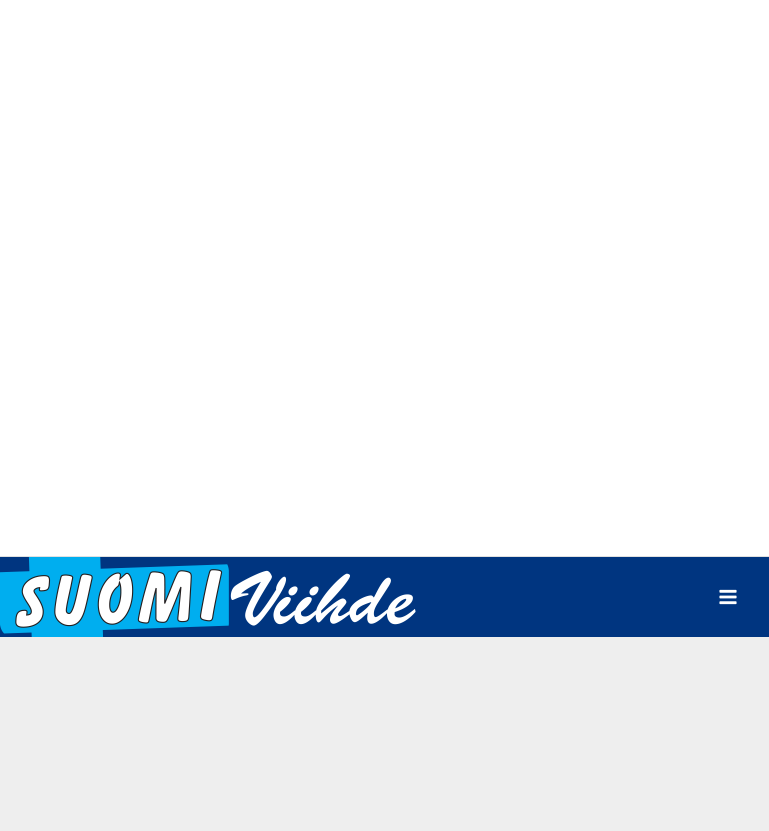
#include "include/core/SkBlurTypes.h"
#include "include/core/SkCanvas.h"
#include "include/core/SkData.h"
#include "include/core/SkFont.h"
#include "include/core/SkFontMgr.h"
#include "include/core/SkImage.h"
#include "include/core/SkMaskFilter.h"
#include "include/core/SkPaint.h"
#include "include/core/SkPathBuilder.h"
#include "include/core/SkTextBlob.h"
#include "include/effects/SkDashPathEffect.h"
#include "include/effects/SkGradientShader.h"
#include "include/utils/SkParsePath.h"

extern sk_sp<SkFontMgr> fontMgr;

void draw(SkCanvas* canvas) {
    SkPaint p;
    p.setAntiAlias(true);
    auto drawPhoto = [&](const char* path, float l, float t, float r, float b) {
        auto image = SkImages::DeferredFromEncodedData(SkData::MakeFromFileName(path));
        canvas->drawImageRect(image, SkRect::MakeLTRB(l, t, r, b), SkSamplingOptions());
    };
    canvas->clear(0xFFFFFFFF);
    p.setColor(0xFFE0E0E0);
    canvas->drawRect(SkRect::MakeLTRB(0, 556, 769, 557), p);
    p.setColor(0xFF003580);
    canvas->drawRect(SkRect::MakeLTRB(0, 557, 769, 637), p);
    drawPhoto("media/1.png", 0, 557, 416, 637);
    drawPhoto("media/2.png", 719, 589, 737, 605);
    p.setColor(0xFFEEEEEE);
    canvas->drawRect(SkRect::MakeLTRB(0, 637, 769, 831), p);
}
